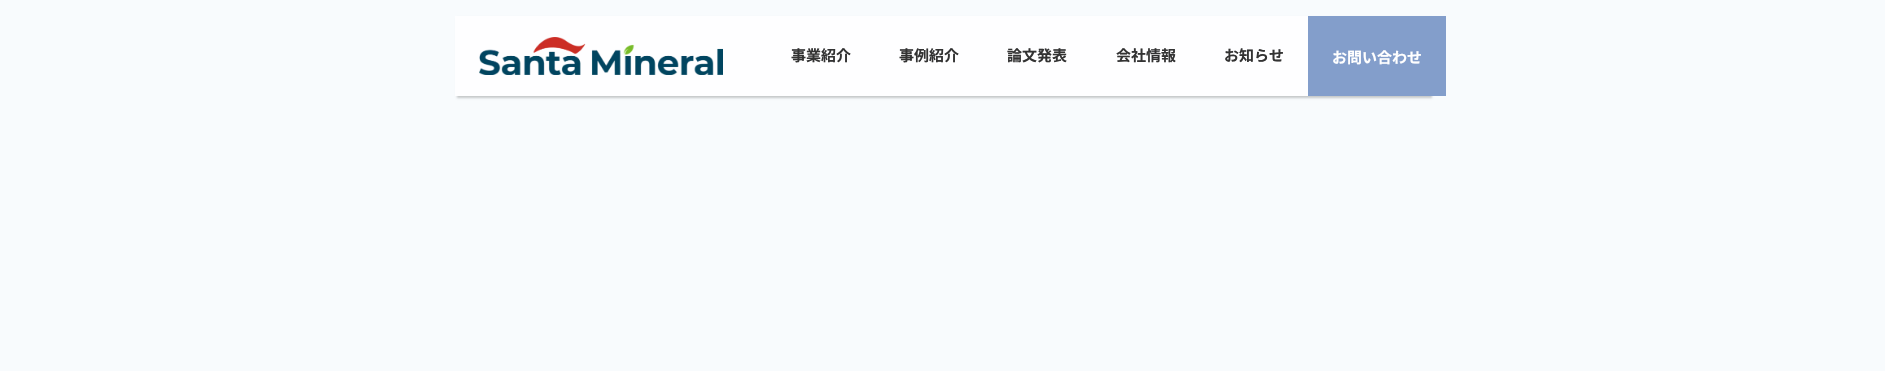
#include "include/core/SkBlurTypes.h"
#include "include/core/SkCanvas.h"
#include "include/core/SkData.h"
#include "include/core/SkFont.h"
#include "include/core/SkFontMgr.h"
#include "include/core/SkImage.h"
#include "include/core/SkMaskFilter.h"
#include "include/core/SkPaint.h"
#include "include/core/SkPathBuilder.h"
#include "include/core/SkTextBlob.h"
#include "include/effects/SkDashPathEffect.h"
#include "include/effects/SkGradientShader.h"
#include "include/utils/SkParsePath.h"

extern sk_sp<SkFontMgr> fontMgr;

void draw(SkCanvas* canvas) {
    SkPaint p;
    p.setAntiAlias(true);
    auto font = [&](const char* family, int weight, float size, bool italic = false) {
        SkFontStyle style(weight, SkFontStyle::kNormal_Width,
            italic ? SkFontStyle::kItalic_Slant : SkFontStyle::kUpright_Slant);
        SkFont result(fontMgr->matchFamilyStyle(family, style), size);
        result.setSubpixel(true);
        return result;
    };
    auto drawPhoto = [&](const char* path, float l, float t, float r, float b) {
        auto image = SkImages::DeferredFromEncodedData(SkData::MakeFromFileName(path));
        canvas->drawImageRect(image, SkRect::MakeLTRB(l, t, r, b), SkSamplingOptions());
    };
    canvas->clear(0xFFF8FBFD);
    p.setColor(0x33000000);
    p.setMaskFilter(SkMaskFilter::MakeBlur(kNormal_SkBlurStyle, 1));
    canvas->drawRect(SkRect::MakeLTRB(457, 18, 1432, 98), p);
    p.setMaskFilter(nullptr);
    p.setColor(0xFFFEFEFF);
    canvas->drawRect(SkRect::MakeLTRB(455, 16, 1308, 96), p);
    drawPhoto("media/1.png", 479, 37, 723, 75);
    auto font1 = font("Noto Sans JP", 700, 15);
    p.setColor(0xFF333333);
    {
        const struct { const char* s; float x, y; } items[] = {
            {"事業紹介", 791, 61},
            {"事例紹介", 899, 61},
            {"論文発表", 1007, 61},
            {"会社情報", 1116, 61},
            {"お知らせ", 1224, 61},
        };
        for (auto [s, x, y] : items) {
            canvas->drawString(s, x, y, font1, p);
        }
    }
    p.setColor(0xFF839ECB);
    canvas->drawRect(SkRect::MakeLTRB(1308, 16, 1446, 96), p);
    p.setColor(0xFFFFFFFF);
    canvas->drawString("お問い合わせ", 1332, 63, font1, p);
}
